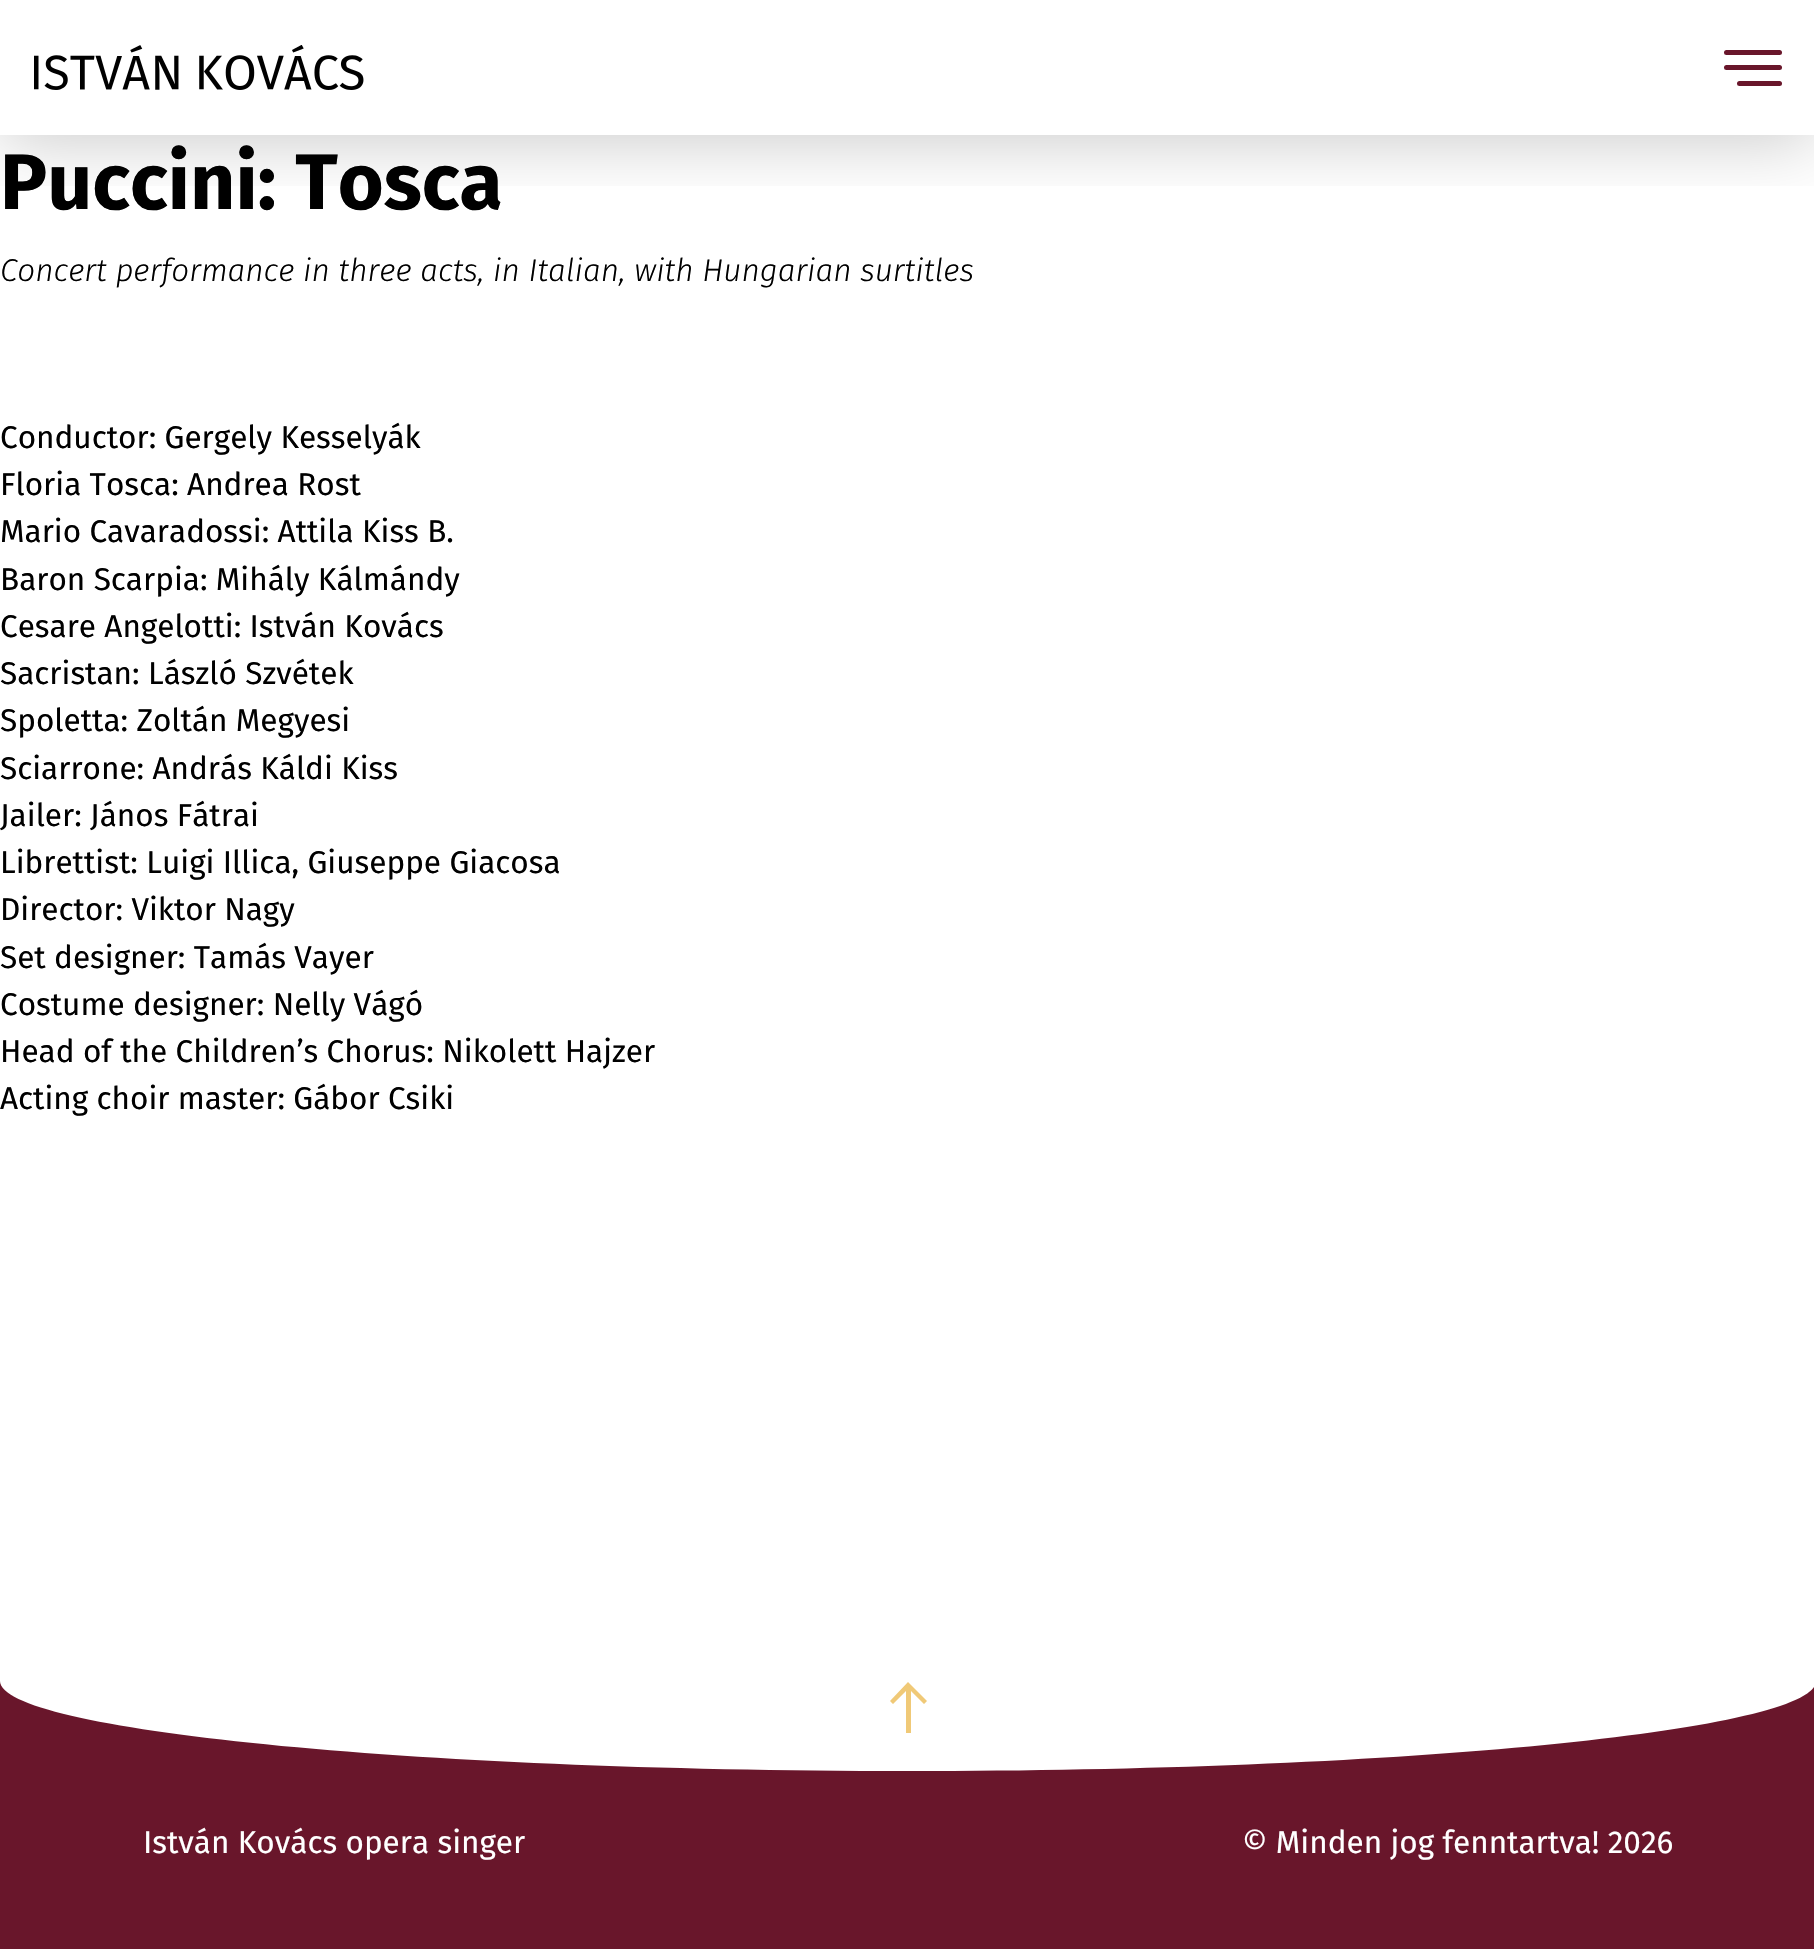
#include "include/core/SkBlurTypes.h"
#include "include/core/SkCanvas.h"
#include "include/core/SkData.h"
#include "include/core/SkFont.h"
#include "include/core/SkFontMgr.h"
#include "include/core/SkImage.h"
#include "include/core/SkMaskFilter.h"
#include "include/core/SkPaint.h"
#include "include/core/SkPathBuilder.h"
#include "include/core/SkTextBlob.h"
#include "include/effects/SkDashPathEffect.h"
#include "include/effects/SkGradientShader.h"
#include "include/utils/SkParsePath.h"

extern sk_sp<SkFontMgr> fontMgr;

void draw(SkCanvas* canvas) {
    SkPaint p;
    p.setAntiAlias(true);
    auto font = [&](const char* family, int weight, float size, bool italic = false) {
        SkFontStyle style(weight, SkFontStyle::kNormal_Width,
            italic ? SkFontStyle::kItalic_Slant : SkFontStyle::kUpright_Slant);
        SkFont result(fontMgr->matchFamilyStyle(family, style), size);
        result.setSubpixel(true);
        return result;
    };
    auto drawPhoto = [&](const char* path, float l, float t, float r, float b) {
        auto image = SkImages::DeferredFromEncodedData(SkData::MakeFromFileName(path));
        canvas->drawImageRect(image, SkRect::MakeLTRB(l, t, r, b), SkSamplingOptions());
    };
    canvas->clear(0xFF69162B);
    p.setColor(0xFFFFFFFF);
    canvas->drawPath(SkPathBuilder().moveTo(0, 0).lineTo(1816, 0).lineTo(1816, 1681).cubicTo(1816, 1730, 1409, 1771, 908, 1771).cubicTo(406, 1771, 0, 1730, 0, 1681).close().detach(), p);
    canvas->save();
    canvas->clipRect(SkRect::MakeLTRB(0, 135, 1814, 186));
    p.setColor(0x33000000);
    p.setMaskFilter(SkMaskFilter::MakeBlur(kNormal_SkBlurStyle, 34));
    canvas->drawRect(SkRect::MakeLTRB(0, 7, 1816, 142), p);
    p.setMaskFilter(nullptr);
    canvas->restore();
    drawPhoto("media/1.png", 34, 45, 364, 90);
    p.setColor(0xFF69162B);
    canvas->drawRoundRect(SkRect::MakeLTRB(1724, 65, 1782, 70), 2.5f, 2.5f, p);
    canvas->drawRoundRect(SkRect::MakeLTRB(1724, 50, 1782, 55), 2.5f, 2.5f, p);
    canvas->drawRoundRect(SkRect::MakeLTRB(1737, 81, 1782, 86), 2.5f, 2.5f, p);
    auto font1 = font("Fira Sans", 700, 78.75f);
    p.setColor(0xFF000000);
    canvas->drawString("Puccini: Tosca", 0, 209, font1, p);
    auto font2 = font("Fira Sans", 300, 31.5f, true);
    canvas->drawString("Concert performance in three acts, in Italian, with Hungarian surtitles", 0, 281, font2, p);
    auto font3 = font("Fira Sans", 400, 31.5f);
    {
        const struct { const char* s; float x, y; } items[] = {
            {"Conductor: Gergely Kesselyák", 0, 448},
            {"Floria Tosca: Andrea Rost", 0, 495},
            {"Mario Cavaradossi: Attila Kiss B.", 0, 542},
            {"Baron Scarpia: Mihály Kálmándy", 0, 590},
            {"Cesare Angelotti: István Kovács", 0, 637},
            {"Sacristan: László Szvétek", 0, 684},
            {"Spoletta: Zoltán Megyesi", 0, 731},
            {"Sciarrone: András Káldi Kiss", 0, 779},
            {"Jailer: János Fátrai", 0, 826},
            {"Librettist: Luigi Illica, Giuseppe Giacosa", 0, 873},
            {"Director: Viktor Nagy", 0, 920},
            {"Set designer: Tamás Vayer", 0, 968},
            {"Costume designer: Nelly Vágó", 0, 1015},
            {"Head of the Children’s Chorus: Nikolett Hajzer", 0, 1062},
            {"Acting choir master: Gábor Csiki", 0, 1109},
        };
        for (auto [s, x, y] : items) {
            canvas->drawString(s, x, y, font3, p);
        }
    }
    p.setColor(0xFFF0C977);
    canvas->drawPath(SkPathBuilder().moveTo(890, 1701).lineTo(893, 1704).lineTo(906, 1691).lineTo(906, 1733).lineTo(911, 1733).lineTo(911, 1691).lineTo(924, 1704).lineTo(927, 1701).lineTo(908, 1682).close().detach(), p);
    p.setColor(0xFFFFFFFF);
    canvas->drawString("István Kovács opera singer", 143, 1853, font3, p);
    canvas->drawString("© Minden jog fenntartva! 2026", 1242, 1853, font3, p);
}
